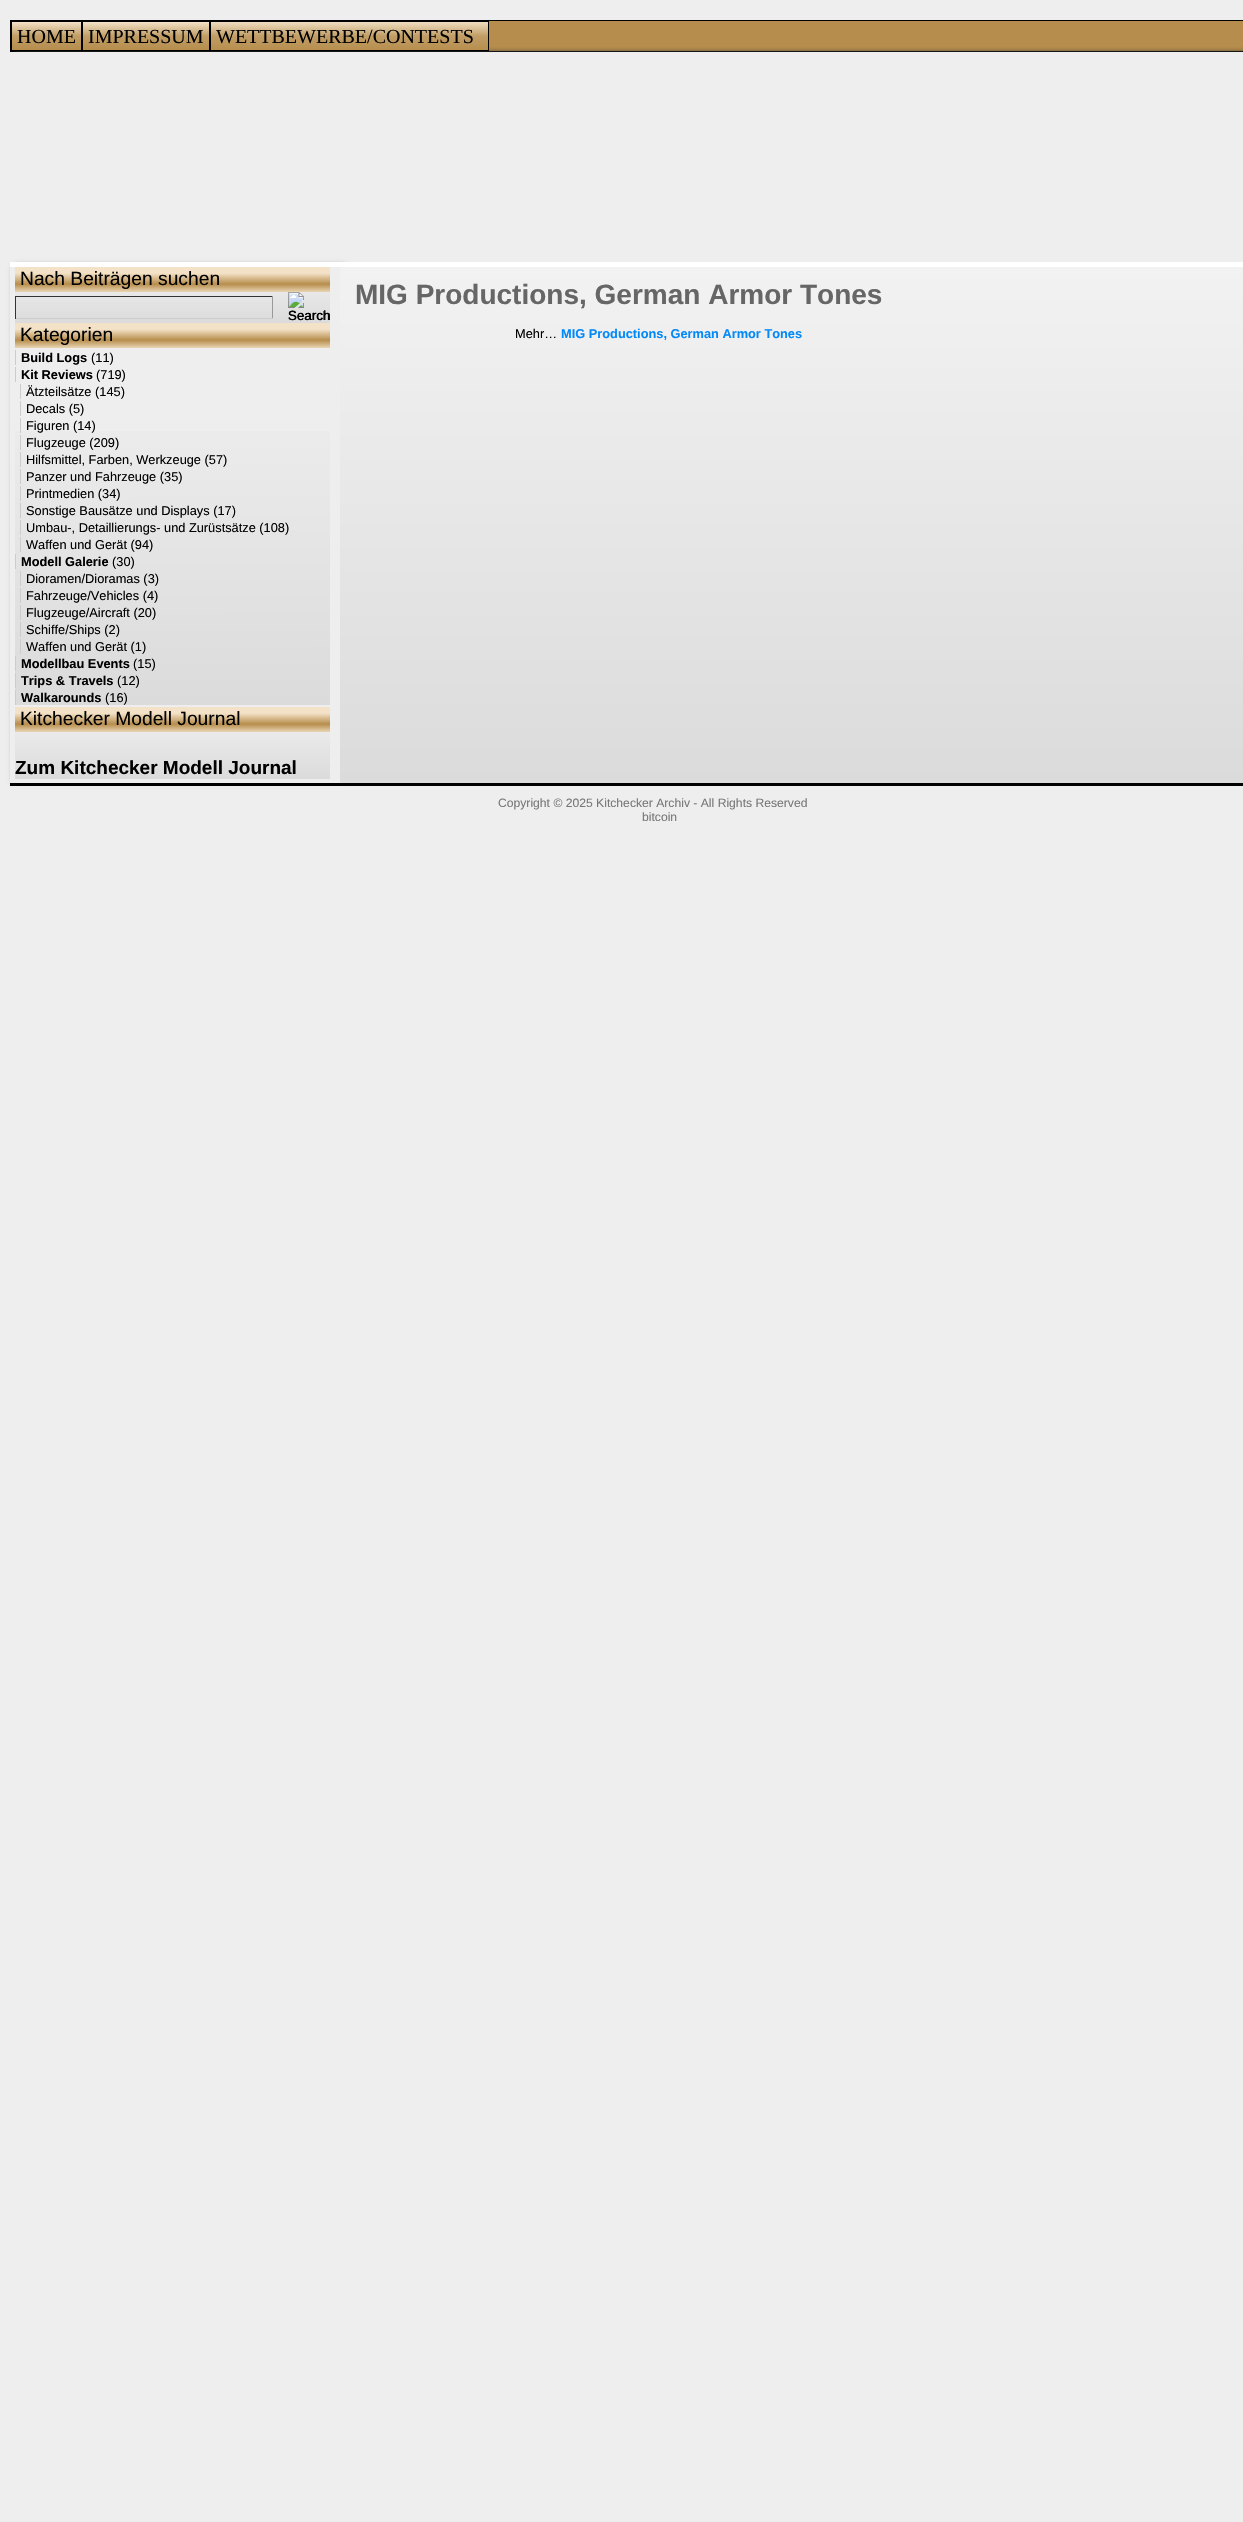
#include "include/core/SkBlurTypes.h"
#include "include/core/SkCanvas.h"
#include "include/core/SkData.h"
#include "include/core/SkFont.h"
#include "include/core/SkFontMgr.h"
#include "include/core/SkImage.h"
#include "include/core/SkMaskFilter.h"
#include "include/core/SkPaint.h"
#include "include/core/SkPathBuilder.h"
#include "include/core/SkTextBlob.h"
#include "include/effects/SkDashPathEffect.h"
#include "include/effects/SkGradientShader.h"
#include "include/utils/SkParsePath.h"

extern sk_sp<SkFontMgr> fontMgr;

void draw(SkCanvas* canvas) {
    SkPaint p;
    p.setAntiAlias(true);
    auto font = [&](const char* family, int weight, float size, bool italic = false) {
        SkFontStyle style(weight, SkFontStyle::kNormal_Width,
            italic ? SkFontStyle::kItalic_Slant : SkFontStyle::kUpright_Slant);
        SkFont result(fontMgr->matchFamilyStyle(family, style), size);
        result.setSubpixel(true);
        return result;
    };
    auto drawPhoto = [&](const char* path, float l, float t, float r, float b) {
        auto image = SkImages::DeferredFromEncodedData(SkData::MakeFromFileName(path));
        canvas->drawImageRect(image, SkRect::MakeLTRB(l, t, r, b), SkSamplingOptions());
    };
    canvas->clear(0xFFEEEEEE);
    p.setColor(0xFFB68D4C);
    canvas->drawRect(SkRect::MakeLTRB(489, 21, 1243, 51), p);
    p.setStyle(SkPaint::kStroke_Style);
    p.setStrokeWidth(1);
    p.setColor(0xFF000000);
    canvas->drawRect(SkRect::MakeLTRB(10.5f, 20.5f, 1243.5f, 51.5f), p);
    canvas->save();
    canvas->clipRect(SkRect::MakeLTRB(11, 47, 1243, 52));
    p.setStyle(SkPaint::kFill_Style);
    p.setColor(0xFF333333);
    p.setMaskFilter(SkMaskFilter::MakeBlur(kNormal_SkBlurStyle, 2.5f));
    canvas->drawRect(SkRect::MakeLTRB(15, 52, 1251, 262), p);
    p.setMaskFilter(nullptr);
    canvas->restore();
    {
        const SkColor colors[] = {0xFFF3E2C7, 0xFFC19E67, 0xFFB68D4C, 0xFFE9D4B3, 0xFFB68D4C};
        const float stops[] = {0, 0.5f, 1, 1, 1};
        const SkPoint ends[] = {{47, 22}, {47, 50}};
        p.setShader(SkGradientShader::MakeLinear(ends, colors, stops, 5, SkTileMode::kClamp));
        p.setAlpha(255);
    }
    canvas->drawRect(SkRect::MakeLTRB(12, 22, 81, 50), p);
    p.setStyle(SkPaint::kStroke_Style);
    p.setShader(nullptr);
    p.setColor(0xFF000000);
    canvas->drawRect(SkRect::MakeLTRB(11.5f, 21.5f, 81.5f, 50.5f), p);
    auto font1 = font("Liberation Serif", 400, 20);
    p.setStyle(SkPaint::kFill_Style);
    canvas->drawString("HOME", 17, 43, font1, p);
    {
        const SkColor colors[] = {0xFFF3E2C7, 0xFFC19E67, 0xFFB68D4C, 0xFFE9D4B3, 0xFFB68D4C};
        const float stops[] = {0, 0.5f, 1, 1, 1};
        const SkPoint ends[] = {{146, 22}, {146, 50}};
        p.setShader(SkGradientShader::MakeLinear(ends, colors, stops, 5, SkTileMode::kClamp));
        p.setAlpha(255);
    }
    canvas->drawRect(SkRect::MakeLTRB(83, 22, 209, 50), p);
    p.setStyle(SkPaint::kStroke_Style);
    p.setShader(nullptr);
    p.setColor(0xFF000000);
    canvas->drawRect(SkRect::MakeLTRB(82.5f, 21.5f, 209.5f, 50.5f), p);
    p.setStyle(SkPaint::kFill_Style);
    canvas->drawString("IMPRESSUM", 88, 43, font1, p);
    {
        const SkColor colors[] = {0xFFF3E2C7, 0xFFC19E67, 0xFFB68D4C, 0xFFE9D4B3, 0xFFB68D4C};
        const float stops[] = {0, 0.5f, 1, 1, 1};
        const SkPoint ends[] = {{350, 21}, {350, 51}};
        p.setShader(SkGradientShader::MakeLinear(ends, colors, stops, 5, SkTileMode::kClamp));
        p.setAlpha(255);
    }
    canvas->drawRect(SkRect::MakeLTRB(211, 22, 488, 50), p);
    p.setStyle(SkPaint::kStroke_Style);
    p.setShader(nullptr);
    p.setColor(0xFF000000);
    canvas->drawRect(SkRect::MakeLTRB(210.5f, 21.5f, 488.5f, 50.5f), p);
    p.setStyle(SkPaint::kFill_Style);
    canvas->drawString("WETTBEWERBE/CONTESTS", 216, 43, font1, p);
    canvas->save();
    canvas->clipPath(SkPathBuilder(SkPathFillType::kEvenOdd).moveTo(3, 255).lineTo(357, 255).lineTo(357, 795).lineTo(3, 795).close().moveTo(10, 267).lineTo(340, 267).lineTo(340, 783).lineTo(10, 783).close().detach(), true);
    p.setColor(0xFF333333);
    p.setMaskFilter(SkMaskFilter::MakeBlur(kNormal_SkBlurStyle, 3.5f));
    canvas->drawRect(SkRect::MakeLTRB(15, 267, 345, 783), p);
    p.setMaskFilter(nullptr);
    canvas->restore();
    p.setColor(0xFFFFFFFF);
    canvas->drawRect(SkRect::MakeLTRB(10, 262, 1243, 267), p);
    {
        const SkColor colors[] = {0xFFF2F2F2, 0xFFDBDBDB};
        const float stops[] = {0, 1};
        const SkPoint ends[] = {{173, 267}, {173, 323}};
        p.setShader(SkGradientShader::MakeLinear(ends, colors, stops, 2, SkTileMode::kClamp));
        p.setAlpha(255);
    }
    canvas->drawRect(SkRect::MakeLTRB(15, 292, 330, 323), p);
    {
        const SkColor colors[] = {0xFFF3E2C7, 0xFFB68D4C, 0xFFE9D4B3, 0xFFB68D4C};
        const float stops[] = {0.25f, 0.68f, 1, 1};
        const SkPoint ends[] = {{173, 267}, {173, 292}};
        p.setShader(SkGradientShader::MakeLinear(ends, colors, stops, 4, SkTileMode::kClamp));
        p.setAlpha(255);
    }
    canvas->drawRect(SkRect::MakeLTRB(15, 267, 330, 292), p);
    auto font2 = font("Liberation Sans", 400, 19.25f);
    p.setShader(nullptr);
    p.setColor(0xFF000000);
    canvas->drawString("Nach Beiträgen suchen", 20, 285, font2, p);
    {
        const struct { float l, t, r, b; SkColor color; } items[] = {
            {15, 296, 273, 297, 0xFF333333},
            {272, 296, 273, 319, 0xFF999999},
            {15, 318, 273, 319, 0xFFCCCCCC},
            {15, 296, 16, 319, 0xFF333333},
        };
        for (auto [l, t, r, b, color] : items) {
            p.setColor(color);
            canvas->drawRect(SkRect::MakeLTRB(l, t, r, b), p);
        }
    }
    drawPhoto("media/1.png", 288, 292, 330, 320);
    auto font3 = font("Liberation Sans", 400, 13.5f);
    p.setColor(0xFF000000);
    canvas->drawString("Search", 288, 320, font3, p);
    {
        const SkColor colors[] = {0xFFF2F2F2, 0xFFDBDBDB};
        const float stops[] = {0, 1};
        const SkPoint ends[] = {{172, 323}, {173, 705}};
        p.setShader(SkGradientShader::MakeLinear(ends, colors, stops, 2, SkTileMode::kClamp));
        p.setAlpha(255);
    }
    canvas->drawRect(SkRect::MakeLTRB(15, 431, 330, 705), p);
    {
        const SkColor colors[] = {0xFFF3E2C7, 0xFFB68D4C, 0xFFE9D4B3, 0xFFB68D4C};
        const float stops[] = {0.25f, 0.68f, 1, 1};
        const SkPoint ends[] = {{173, 323}, {173, 348}};
        p.setShader(SkGradientShader::MakeLinear(ends, colors, stops, 4, SkTileMode::kClamp));
        p.setAlpha(255);
    }
    canvas->drawRect(SkRect::MakeLTRB(15, 323, 330, 348), p);
    p.setShader(nullptr);
    p.setColor(0xFF000000);
    canvas->drawString("Kategorien", 20, 341, font2, p);
    auto font4 = font("Liberation Sans", 700, 12.8f);
    canvas->drawString("Build Logs", 21, 362, font4, p);
    p.setColor(0xFFCCCCCC);
    canvas->drawRect(SkRect::MakeLTRB(15, 350, 16, 365), p);
    auto font5 = font("Liberation Sans", 400, 12.8f);
    p.setColor(0xFF000000);
    canvas->drawString("(11)", 91, 362, font5, p);
    canvas->drawString("Kit Reviews", 21, 379, font4, p);
    p.setColor(0xFFCCCCCC);
    canvas->drawRect(SkRect::MakeLTRB(15, 367, 16, 382), p);
    p.setColor(0xFF000000);
    canvas->drawString("(719)", 96, 379, font5, p);
    canvas->drawString("Ätzteilsätze (145)", 26, 396, font5, p);
    p.setColor(0xFFCCCCCC);
    canvas->drawRect(SkRect::MakeLTRB(20, 384, 21, 399), p);
    p.setColor(0xFF000000);
    canvas->drawString("Decals (5)", 26, 413, font5, p);
    p.setColor(0xFFCCCCCC);
    canvas->drawRect(SkRect::MakeLTRB(20, 401, 21, 416), p);
    p.setColor(0xFF000000);
    canvas->drawString("Figuren (14)", 26, 430, font5, p);
    p.setColor(0xFFCCCCCC);
    canvas->drawRect(SkRect::MakeLTRB(20, 418, 21, 433), p);
    p.setColor(0xFF000000);
    canvas->drawString("Flugzeuge (209)", 26, 447, font5, p);
    p.setColor(0xFFCCCCCC);
    canvas->drawRect(SkRect::MakeLTRB(20, 435, 21, 450), p);
    p.setColor(0xFF000000);
    canvas->drawString("Hilfsmittel, Farben, Werkzeuge (57)", 26, 464, font5, p);
    p.setColor(0xFFCCCCCC);
    canvas->drawRect(SkRect::MakeLTRB(20, 452, 21, 467), p);
    p.setColor(0xFF000000);
    canvas->drawString("Panzer und Fahrzeuge (35)", 26, 481, font5, p);
    p.setColor(0xFFCCCCCC);
    canvas->drawRect(SkRect::MakeLTRB(20, 469, 21, 484), p);
    p.setColor(0xFF000000);
    canvas->drawString("Printmedien (34)", 26, 498, font5, p);
    p.setColor(0xFFCCCCCC);
    canvas->drawRect(SkRect::MakeLTRB(20, 486, 21, 501), p);
    p.setColor(0xFF000000);
    canvas->drawString("Sonstige Bausätze und Displays (17)", 26, 515, font5, p);
    p.setColor(0xFFCCCCCC);
    canvas->drawRect(SkRect::MakeLTRB(20, 503, 21, 518), p);
    p.setColor(0xFF000000);
    canvas->drawString("Umbau-, Detaillierungs- und Zurüstsätze (108)", 26, 532, font5, p);
    p.setColor(0xFFCCCCCC);
    canvas->drawRect(SkRect::MakeLTRB(20, 520, 21, 535), p);
    p.setColor(0xFF000000);
    canvas->drawString("Waffen und Gerät (94)", 26, 549, font5, p);
    p.setColor(0xFFCCCCCC);
    canvas->drawRect(SkRect::MakeLTRB(20, 537, 21, 552), p);
    p.setColor(0xFF000000);
    canvas->drawString("Modell Galerie", 21, 566, font4, p);
    p.setColor(0xFFCCCCCC);
    canvas->drawRect(SkRect::MakeLTRB(15, 554, 16, 569), p);
    p.setColor(0xFF000000);
    canvas->drawString("(30)", 112, 566, font5, p);
    canvas->drawString("Dioramen/Dioramas (3)", 26, 583, font5, p);
    p.setColor(0xFFCCCCCC);
    canvas->drawRect(SkRect::MakeLTRB(20, 571, 21, 586), p);
    p.setColor(0xFF000000);
    canvas->drawString("Fahrzeuge/Vehicles (4)", 26, 600, font5, p);
    p.setColor(0xFFCCCCCC);
    canvas->drawRect(SkRect::MakeLTRB(20, 588, 21, 603), p);
    p.setColor(0xFF000000);
    canvas->drawString("Flugzeuge/Aircraft (20)", 26, 617, font5, p);
    p.setColor(0xFFCCCCCC);
    canvas->drawRect(SkRect::MakeLTRB(20, 605, 21, 620), p);
    p.setColor(0xFF000000);
    canvas->drawString("Schiffe/Ships (2)", 26, 634, font5, p);
    p.setColor(0xFFCCCCCC);
    canvas->drawRect(SkRect::MakeLTRB(20, 622, 21, 637), p);
    p.setColor(0xFF000000);
    canvas->drawString("Waffen und Gerät (1)", 26, 651, font5, p);
    p.setColor(0xFFCCCCCC);
    canvas->drawRect(SkRect::MakeLTRB(20, 639, 21, 654), p);
    p.setColor(0xFF000000);
    canvas->drawString("Modellbau Events", 21, 668, font4, p);
    p.setColor(0xFFCCCCCC);
    canvas->drawRect(SkRect::MakeLTRB(15, 656, 16, 671), p);
    p.setColor(0xFF000000);
    canvas->drawString("(15)", 133, 668, font5, p);
    canvas->drawString("Trips & Travels", 21, 685, font4, p);
    p.setColor(0xFFCCCCCC);
    canvas->drawRect(SkRect::MakeLTRB(15, 673, 16, 688), p);
    p.setColor(0xFF000000);
    canvas->drawString("(12)", 117, 685, font5, p);
    canvas->drawString("Walkarounds", 21, 702, font4, p);
    p.setColor(0xFFCCCCCC);
    canvas->drawRect(SkRect::MakeLTRB(15, 690, 16, 705), p);
    p.setColor(0xFF000000);
    canvas->drawString("(16)", 105, 702, font5, p);
    {
        const SkColor colors[] = {0xFFF2F2F2, 0xFFDBDBDB};
        const float stops[] = {0, 1};
        const SkPoint ends[] = {{173, 707}, {173, 779}};
        p.setShader(SkGradientShader::MakeLinear(ends, colors, stops, 2, SkTileMode::kClamp));
        p.setAlpha(255);
    }
    canvas->drawRect(SkRect::MakeLTRB(15, 732, 330, 779), p);
    {
        const SkColor colors[] = {0xFFF3E2C7, 0xFFB68D4C, 0xFFE9D4B3, 0xFFB68D4C};
        const float stops[] = {0.25f, 0.68f, 1, 1};
        const SkPoint ends[] = {{173, 707}, {173, 732}};
        p.setShader(SkGradientShader::MakeLinear(ends, colors, stops, 4, SkTileMode::kClamp));
        p.setAlpha(255);
    }
    canvas->drawRect(SkRect::MakeLTRB(15, 707, 330, 732), p);
    p.setShader(nullptr);
    p.setColor(0xFF000000);
    canvas->drawString("Kitchecker Modell Journal", 20, 725, font2, p);
    auto font6 = font("Liberation Sans", 700, 19);
    canvas->drawString("Zum Kitchecker Modell Journal", 15, 774, font6, p);
    {
        const SkColor colors[] = {0xFFF2F2F2, 0xFFDBDBDB};
        const float stops[] = {0, 1};
        const SkPoint ends[] = {{825, 267}, {825, 783}};
        p.setShader(SkGradientShader::MakeLinear(ends, colors, stops, 2, SkTileMode::kClamp));
        p.setAlpha(255);
    }
    canvas->drawRect(SkRect::MakeLTRB(340, 267, 1243, 783), p);
    auto font7 = font("Liberation Sans", 700, 28);
    p.setShader(nullptr);
    p.setColor(0xFF666666);
    canvas->drawString("MIG Productions, German Armor Tones", 355, 304, font7, p);
    p.setColor(0xFF000000);
    canvas->drawString("Mehr…", 515, 338, font5, p);
    p.setColor(0xFF0489F9);
    canvas->drawString("MIG Productions, German Armor Tones", 561, 338, font4, p);
    p.setColor(0xFFEEEEEE);
    canvas->drawRect(SkRect::MakeLTRB(10, 786, 350, 791), p);
    p.setColor(0xFF000000);
    canvas->drawRect(SkRect::MakeLTRB(10, 783, 1243, 786), p);
    auto font8 = font("Liberation Sans", 400, 12.15f);
    p.setColor(0xFF777777);
    canvas->drawString("Copyright © 2025 Kitchecker Archiv - All Rights Reserved", 498, 807, font8, p);
    canvas->drawString("bitcoin", 642, 821, font8, p);
}
